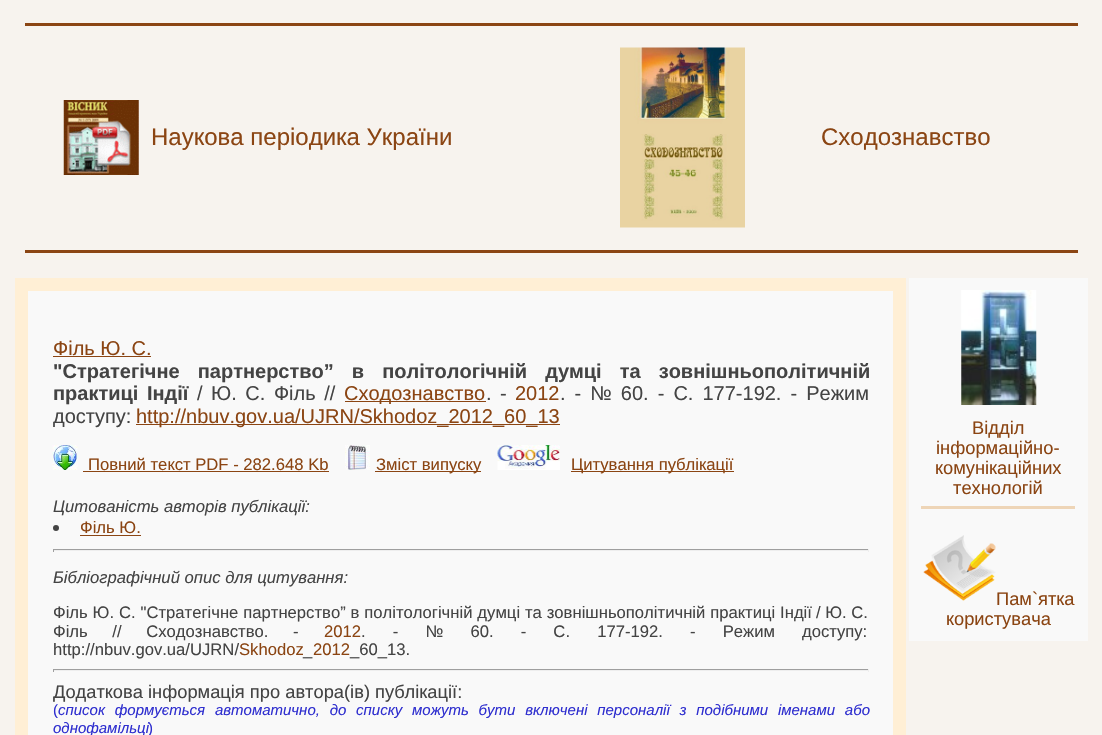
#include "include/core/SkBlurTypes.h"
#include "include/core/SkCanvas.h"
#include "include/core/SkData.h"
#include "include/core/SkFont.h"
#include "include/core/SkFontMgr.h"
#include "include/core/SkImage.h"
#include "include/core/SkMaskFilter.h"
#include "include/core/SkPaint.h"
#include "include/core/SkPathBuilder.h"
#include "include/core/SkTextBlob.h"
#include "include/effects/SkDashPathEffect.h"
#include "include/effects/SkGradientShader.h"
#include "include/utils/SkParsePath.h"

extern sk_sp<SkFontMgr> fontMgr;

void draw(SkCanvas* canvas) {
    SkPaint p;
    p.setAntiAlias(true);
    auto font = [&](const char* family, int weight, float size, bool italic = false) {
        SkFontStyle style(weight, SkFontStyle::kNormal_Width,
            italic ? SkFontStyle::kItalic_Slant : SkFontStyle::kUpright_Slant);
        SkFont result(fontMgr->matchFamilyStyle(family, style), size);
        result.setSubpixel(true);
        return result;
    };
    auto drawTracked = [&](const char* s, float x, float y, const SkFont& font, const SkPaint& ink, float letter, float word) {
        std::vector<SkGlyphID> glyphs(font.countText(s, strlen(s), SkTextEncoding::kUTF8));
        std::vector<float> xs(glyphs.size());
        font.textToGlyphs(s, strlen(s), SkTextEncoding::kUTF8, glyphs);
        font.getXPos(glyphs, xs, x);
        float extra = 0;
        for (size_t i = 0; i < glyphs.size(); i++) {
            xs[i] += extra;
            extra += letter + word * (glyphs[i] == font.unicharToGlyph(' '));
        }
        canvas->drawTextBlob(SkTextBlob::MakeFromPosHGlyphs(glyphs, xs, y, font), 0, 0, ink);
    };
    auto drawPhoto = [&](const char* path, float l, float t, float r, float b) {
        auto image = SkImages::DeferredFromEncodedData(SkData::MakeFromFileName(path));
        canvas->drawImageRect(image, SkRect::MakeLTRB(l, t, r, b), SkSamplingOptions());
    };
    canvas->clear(0xFFF7F3EE);
    p.setColor(0xFF8B4513);
    canvas->drawRect(SkRect::MakeLTRB(25, 23, 1078, 26), p);
    drawPhoto("media/1.png", 63, 100, 139, 175);
    auto font1 = font("Liberation Sans", 400, 24);
    canvas->drawString("Наукова періодика України", 151, 145, font1, p);
    drawPhoto("media/2.png", 620, 47, 745, 228);
    canvas->drawString("Сходознавство", 821, 145, font1, p);
    canvas->drawRect(SkRect::MakeLTRB(25, 250, 1078, 253), p);
    p.setColor(0xFFF9F9F9);
    canvas->drawRect(SkRect::MakeLTRB(21.5f, 284.5f, 899.5f, 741.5f), p);
    p.setStyle(SkPaint::kStroke_Style);
    p.setStrokeWidth(13);
    p.setColor(0xFFFFEFD5);
    canvas->drawRect(SkRect::MakeLTRB(21.5f, 284.5f, 899.5f, 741.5f), p);
    auto font2 = font("Liberation Sans", 400, 20);
    p.setStyle(SkPaint::kFill_Style);
    p.setColor(0xFF8B4513);
    canvas->drawString("Філь Ю. С.", 53, 355, font2, p);
    canvas->drawRect(SkRect::MakeLTRB(53, 356, 151, 357), p);
    auto font3 = font("Liberation Sans", 700, 20);
    p.setColor(0xFF444444);
    drawTracked("\"Стратегічне партнерство” в політологічній думці та зовнішньополітичній", 53, 378, font3, p, 0, 12.5f);
    drawTracked("практиці Індії", 53, 400, font3, p, 0, 3);
    canvas->drawString("/", 197, 400, font2, p);
    drawTracked("Ю. С. Філь //", 211, 400, font2, p, 0, 3);
    p.setColor(0xFF8B4513);
    canvas->drawRect(SkRect::MakeLTRB(345, 401, 486, 402), p);
    canvas->drawString("Сходознавство", 344, 400, font2, p);
    p.setColor(0xFF444444);
    drawTracked(". -", 486, 400, font2, p, 0, 3);
    p.setColor(0xFF8B4513);
    canvas->drawString("2012", 515, 400, font2, p);
    p.setColor(0xFF444444);
    drawTracked(". - № 60. - С. 177-192. - Режим", 560, 400, font2, p, 0, 3.5f);
    canvas->drawString("доступу:", 53, 423, font2, p);
    p.setColor(0xFF8B4513);
    canvas->drawRect(SkRect::MakeLTRB(136, 424, 449, 425), p);
    canvas->drawString("http://nbuv.gov.ua/UJRN/Skhodoz_2012", 136, 423, font2, p);
    canvas->drawRect(SkRect::MakeLTRB(449, 424, 560, 425), p);
    canvas->drawString("_60_13", 493, 423, font2, p);
    drawPhoto("media/3.png", 52, 445, 78, 470);
    auto font4 = font("Liberation Sans", 400, 16.65f);
    canvas->drawString("Повний текст PDF - 282.648 Kb", 88, 470, font4, p);
    canvas->drawRect(SkRect::MakeLTRB(83, 471, 329, 472), p);
    drawPhoto("media/4.png", 345, 445, 370, 470);
    canvas->drawRect(SkRect::MakeLTRB(375, 471, 481, 472), p);
    canvas->drawString("Зміст випуску", 376, 470, font4, p);
    drawPhoto("media/5.png", 497, 445, 560, 470);
    canvas->drawRect(SkRect::MakeLTRB(571, 471, 734, 472), p);
    canvas->drawString("Цитування публікації", 571, 470, font4, p);
    auto font5 = font("Liberation Sans", 400, 16.65f, true);
    p.setColor(0xFF444444);
    canvas->drawString("Цитованість авторів публікації:", 53, 512, font5, p);
    canvas->drawCircle(56, 528, 3, p);
    p.setColor(0xFF8B4513);
    canvas->drawString("Філь Ю.", 80, 533, font4, p);
    {
        const struct { float l, t, r, b; SkColor color; } items[] = {
            {80, 535, 141, 536, 0xFF8B4513},
            {53, 549, 869, 550, 0xFF9F9F9F},
            {868, 549, 869, 552, 0xFFEEEEEE},
            {53, 550, 869, 551, 0xFFEEEEEE},
            {53, 549, 54, 552, 0xFF9F9F9F},
        };
        for (auto [l, t, r, b, color] : items) {
            p.setColor(color);
            canvas->drawRect(SkRect::MakeLTRB(l, t, r, b), p);
        }
    }
    p.setColor(0xFF444444);
    canvas->drawString("Бібліографічний опис для цитування:", 53, 583, font5, p);
    drawTracked("Філь Ю. С. \"Стратегічне партнерство” в політологічній думці та зовнішньополітичній практиці Індії", 53, 618, font4, p, 0, 0.25f);
    canvas->drawString("/ Ю. С.", 816, 618, font4, p);
    drawTracked("Філь // Сходознавство. -", 53, 637, font4, p, 0, 20);
    p.setColor(0xFF8B4513);
    canvas->drawString("2012", 324, 637, font4, p);
    p.setColor(0xFF444444);
    drawTracked(". - № 60. - С. 177-192. - Режим доступу:", 361, 637, font4, p, 0, 22.5f);
    canvas->drawString("http://nbuv.gov.ua/UJRN/", 53, 655, font4, p);
    p.setColor(0xFF8B4513);
    canvas->drawString("Skhodoz", 239, 655, font4, p);
    p.setColor(0xFF444444);
    canvas->drawString("_", 303, 655, font4, p);
    p.setColor(0xFF8B4513);
    canvas->drawString("2012", 313, 655, font4, p);
    p.setColor(0xFF444444);
    canvas->drawString("_60_13.", 350, 655, font4, p);
    {
        const struct { float l, t, r, b; SkColor color; } items[] = {
            {53, 669, 869, 670, 0xFF9F9F9F},
            {868, 669, 869, 672, 0xFFEEEEEE},
            {53, 670, 869, 671, 0xFFEEEEEE},
            {53, 669, 54, 672, 0xFF9F9F9F},
        };
        for (auto [l, t, r, b, color] : items) {
            p.setColor(color);
            canvas->drawRect(SkRect::MakeLTRB(l, t, r, b), p);
        }
    }
    auto font6 = font("Liberation Sans", 400, 18.3f);
    p.setColor(0xFF444444);
    canvas->drawString("Додаткова інформація про автора(ів) публікації:", 53, 698, font6, p);
    auto font7 = font("Liberation Sans", 400, 15);
    p.setColor(0xFF2F2FCF);
    canvas->drawString("(", 53, 715, font7, p);
    auto font8 = font("Liberation Sans", 400, 15, true);
    drawTracked("cписок формується автоматично, до списку можуть бути включені персоналії з подібними іменами або", 58, 715, font8, p, 0, 5.6f);
    canvas->drawString("однофамільці", 53, 733, font8, p);
    canvas->drawString(")", 148, 733, font7, p);
    p.setColor(0xFFF9F9F9);
    canvas->drawRect(SkRect::MakeLTRB(909, 278, 1088, 641), p);
    drawPhoto("media/6.png", 961, 290, 1037, 405);
    p.setColor(0xFF8B4513);
    {
        const struct { const char* s; float x, y; } items[] = {
            {"Відділ", 972, 434},
            {"інформаційно-", 936, 454},
            {"комунікаційних", 935, 474},
            {"технологій", 953, 494},
        };
        for (auto [s, x, y] : items) {
            canvas->drawString(s, x, y, font6, p);
        }
    }
    p.setColor(0xFFEED5B7);
    canvas->drawRect(SkRect::MakeLTRB(921, 506, 1075, 509), p);
    drawPhoto("media/7.png", 923, 535, 996, 601);
    p.setColor(0xFF8B4513);
    canvas->drawString("Пам`ятка", 996, 605, font6, p);
    canvas->drawString("користувача", 946, 625, font6, p);
}
